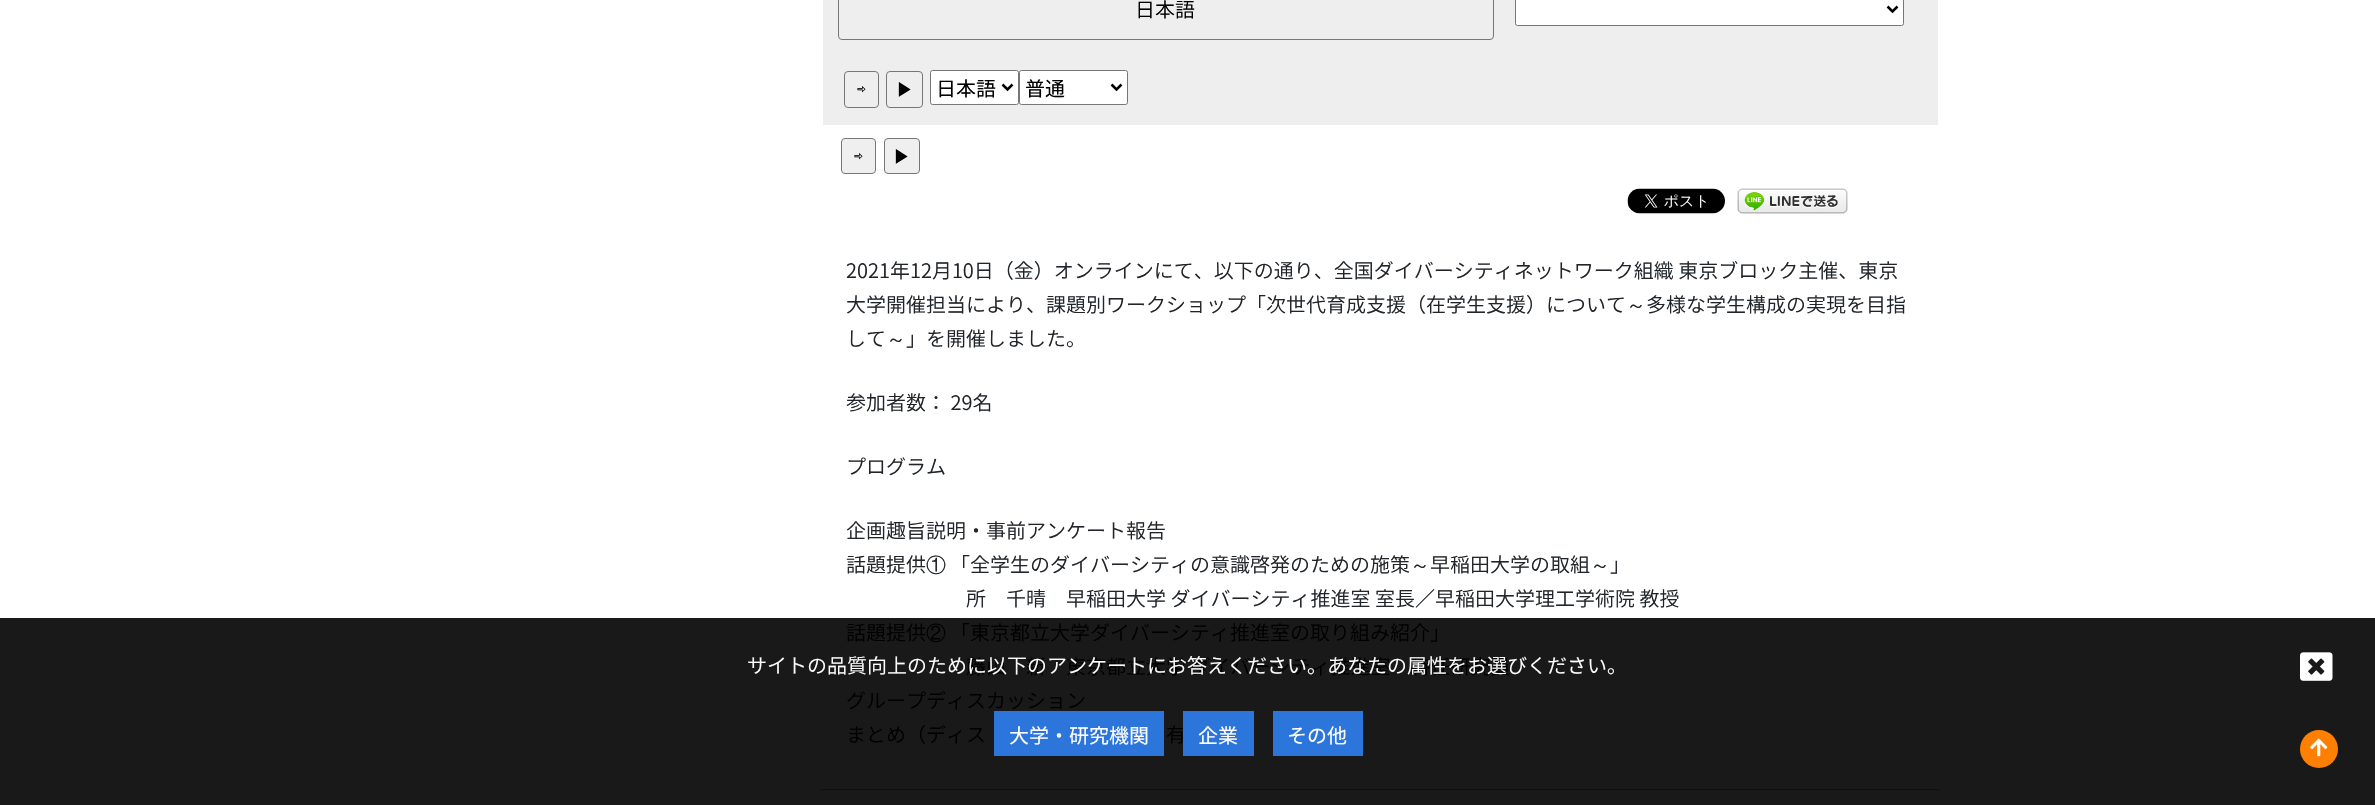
#include "include/core/SkBlurTypes.h"
#include "include/core/SkCanvas.h"
#include "include/core/SkData.h"
#include "include/core/SkFont.h"
#include "include/core/SkFontMgr.h"
#include "include/core/SkImage.h"
#include "include/core/SkMaskFilter.h"
#include "include/core/SkPaint.h"
#include "include/core/SkPathBuilder.h"
#include "include/core/SkTextBlob.h"
#include "include/effects/SkDashPathEffect.h"
#include "include/effects/SkGradientShader.h"
#include "include/utils/SkParsePath.h"

extern sk_sp<SkFontMgr> fontMgr;

void draw(SkCanvas* canvas) {
    SkPaint p;
    p.setAntiAlias(true);
    auto font = [&](const char* family, int weight, float size, bool italic = false) {
        SkFontStyle style(weight, SkFontStyle::kNormal_Width,
            italic ? SkFontStyle::kItalic_Slant : SkFontStyle::kUpright_Slant);
        SkFont result(fontMgr->matchFamilyStyle(family, style), size);
        result.setSubpixel(true);
        return result;
    };
    auto drawPhoto = [&](const char* path, float l, float t, float r, float b) {
        auto image = SkImages::DeferredFromEncodedData(SkData::MakeFromFileName(path));
        canvas->drawImageRect(image, SkRect::MakeLTRB(l, t, r, b), SkSamplingOptions());
    };
    canvas->clear(0xFFFFFFFF);
    p.setColor(0xFF191919);
    canvas->drawRect(SkRect::MakeLTRB(0, 618, 2375, 805), p);
    p.setColor(0xFFEEEEEE);
    canvas->drawRect(SkRect::MakeLTRB(823, 0, 1938, 125), p);
    p.setStyle(SkPaint::kStroke_Style);
    p.setStrokeWidth(1);
    p.setColor(0xFF767676);
    canvas->drawRoundRect(SkRect::MakeLTRB(838.5f, -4.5f, 1493.5f, 39.5f), 3.5f, 3.5f, p);
    auto font1 = font("Noto Sans JP", 300, 20);
    p.setStyle(SkPaint::kFill_Style);
    p.setColor(0xFF000000);
    canvas->drawString("日本語", 1135, 17, font1, p);
    p.setColor(0xFFFFFFFF);
    canvas->drawRoundRect(SkRect::MakeLTRB(1515.5f, -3.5f, 1903.5f, 25.5f), 2, 2, p);
    p.setStyle(SkPaint::kStroke_Style);
    p.setColor(0xFF767676);
    canvas->drawRoundRect(SkRect::MakeLTRB(1515.5f, -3.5f, 1903.5f, 25.5f), 2, 2, p);
    p.setStrokeWidth(2.5f);
    p.setColor(0xFF000000);
    canvas->drawPath(SkPathBuilder().moveTo(1887.5f, 6.5f).lineTo(1892.5f, 11.5f).lineTo(1897.5f, 6.5f).detach(), p);
    p.setStrokeWidth(1);
    p.setColor(0xFF767676);
    canvas->drawRoundRect(SkRect::MakeLTRB(844.5f, 71.5f, 878.5f, 107.5f), 3.5f, 3.5f, p);
    auto font2 = font("IPAPGothic", 400, 18);
    p.setStyle(SkPaint::kFill_Style);
    p.setColor(0xFF000000);
    canvas->drawString("⇨", 857, 96, font2, p);
    p.setStyle(SkPaint::kStroke_Style);
    p.setColor(0xFF767676);
    canvas->drawRoundRect(SkRect::MakeLTRB(886.5f, 71.5f, 922.5f, 107.5f), 3.5f, 3.5f, p);
    auto font3 = font("WenQuanYi Zen Hei", 500, 18);
    p.setStyle(SkPaint::kFill_Style);
    p.setColor(0xFF000000);
    canvas->drawString("▶", 896, 96, font3, p);
    p.setColor(0xFFFFFFFF);
    canvas->drawRoundRect(SkRect::MakeLTRB(930.5f, 70.5f, 1018.5f, 104.5f), 2, 2, p);
    p.setStyle(SkPaint::kStroke_Style);
    p.setColor(0xFF767676);
    canvas->drawRoundRect(SkRect::MakeLTRB(930.5f, 70.5f, 1018.5f, 104.5f), 2, 2, p);
    p.setStrokeWidth(2.5f);
    p.setColor(0xFF000000);
    canvas->drawPath(SkPathBuilder().moveTo(1002.5f, 84.5f).lineTo(1007.5f, 89.5f).lineTo(1012.5f, 84.5f).detach(), p);
    auto font4 = font("Noto Sans JP", 400, 20);
    p.setStyle(SkPaint::kFill_Style);
    canvas->drawString("日本語", 936, 96, font4, p);
    p.setColor(0xFFFFFFFF);
    canvas->drawRoundRect(SkRect::MakeLTRB(1019.5f, 70.5f, 1127.5f, 104.5f), 2, 2, p);
    p.setStyle(SkPaint::kStroke_Style);
    p.setStrokeWidth(1);
    p.setColor(0xFF767676);
    canvas->drawRoundRect(SkRect::MakeLTRB(1019.5f, 70.5f, 1127.5f, 104.5f), 2, 2, p);
    p.setStrokeWidth(2.5f);
    p.setColor(0xFF000000);
    canvas->drawPath(SkPathBuilder().moveTo(1111.5f, 84.5f).lineTo(1116.5f, 89.5f).lineTo(1121.5f, 84.5f).detach(), p);
    p.setStyle(SkPaint::kFill_Style);
    canvas->drawString("普通", 1025, 96, font4, p);
    p.setColor(0xFF190D00);
    canvas->drawRect(SkRect::MakeLTRB(821, 789, 1939, 790), p);
    p.setColor(0xFFEFEFEF);
    canvas->drawRoundRect(SkRect::MakeLTRB(841.5f, 138.5f, 875.5f, 173.5f), 3.5f, 3.5f, p);
    p.setStyle(SkPaint::kStroke_Style);
    p.setStrokeWidth(1);
    p.setColor(0xFF767676);
    canvas->drawRoundRect(SkRect::MakeLTRB(841.5f, 138.5f, 875.5f, 173.5f), 3.5f, 3.5f, p);
    p.setStyle(SkPaint::kFill_Style);
    p.setColor(0xFF000000);
    canvas->drawString("⇨", 854, 163, font2, p);
    p.setColor(0xFFEFEFEF);
    canvas->drawRoundRect(SkRect::MakeLTRB(884.5f, 138.5f, 919.5f, 173.5f), 3.5f, 3.5f, p);
    p.setStyle(SkPaint::kStroke_Style);
    p.setColor(0xFF767676);
    canvas->drawRoundRect(SkRect::MakeLTRB(884.5f, 138.5f, 919.5f, 173.5f), 3.5f, 3.5f, p);
    p.setStyle(SkPaint::kFill_Style);
    p.setColor(0xFF000000);
    canvas->drawString("▶", 893, 163, font3, p);
    drawPhoto("media/1.png", 1627, 188, 1725, 214);
    drawPhoto("media/2.png", 1737, 188, 1848, 214);
    p.setColor(0xFF212529);
    canvas->drawString("2021年12月10日（金）オンラインにて、以下の通り、全国ダイバーシティネットワーク組織 東京ブロック主催、東京", 846, 278, font1, p);
    canvas->drawString("大学開催担当により、課題別ワークショップ「次世代育成支援（在学生支援）について", 846, 312, font1, p);
    auto font5 = font("WenQuanYi Zen Hei", 500, 20);
    canvas->drawString("～", 1626, 312, font5, p);
    canvas->drawString("多様な学生構成の実現を目指", 1646, 312, font1, p);
    canvas->drawString("して", 846, 346, font1, p);
    canvas->drawString("～", 886, 346, font5, p);
    {
        const struct { const char* s; float x, y; } items[] = {
            {"」を開催しました。", 906, 346},
            {"参加者数： 29名", 846, 410},
            {"プログラム", 846, 474},
            {"企画趣旨説明・事前アンケート報告", 846, 538},
            {"話題提供", 846, 572},
        };
        for (auto [s, x, y] : items) {
            canvas->drawString(s, x, y, font1, p);
        }
    }
    canvas->drawString("①", 926, 572, font5, p);
    canvas->drawString("「全学生のダイバーシティの意識啓発のための施策", 950, 572, font1, p);
    canvas->drawString("～", 1410, 572, font5, p);
    canvas->drawString("早稲田大学の取組", 1430, 572, font1, p);
    canvas->drawString("～", 1590, 572, font5, p);
    canvas->drawString("」", 1610, 572, font1, p);
    canvas->drawString("所　千晴　早稲田大学 ダイバーシティ推進室 室長／早稲田大学理工学術院 教授", 966, 606, font1, p);
    p.setColor(0xFF000000);
    canvas->drawString("話題提供", 846, 640, font1, p);
    canvas->drawString("②", 926, 640, font5, p);
    {
        const struct { const char* s; float x, y; } items[] = {
            {"「東京都立大学ダイバーシティ推進室の取り組み紹介」", 950, 640},
            {"藤山　新　東京都立大学 ダイバーシティ推進室　特任研究員", 966, 674},
            {"グループディスカッション", 846, 708},
            {"まとめ（ディス", 846, 742},
            {"有", 1166, 742},
        };
        for (auto [s, x, y] : items) {
            canvas->drawString(s, x, y, font1, p);
        }
    }
    p.setColor(0xFFFFFFFF);
    canvas->drawString("サイトの品質向上のために以下のアンケートにお答えください。あなたの属性をお選びください。", 747, 673, font1, p);
    drawPhoto("media/3.png", 2300, 652, 2333, 681);
    p.setColor(0xFF2C75DB);
    canvas->drawRect(SkRect::MakeLTRB(994, 711, 1164, 756), p);
    p.setColor(0xFFFFFFFF);
    canvas->drawString("大学・研究機関", 1009, 743, font4, p);
    p.setColor(0xFF2C75DB);
    canvas->drawRect(SkRect::MakeLTRB(1183, 711, 1254, 756), p);
    p.setColor(0xFFFFFFFF);
    canvas->drawString("企業", 1198, 743, font4, p);
    p.setColor(0xFF2C75DB);
    canvas->drawRect(SkRect::MakeLTRB(1273, 711, 1363, 756), p);
    p.setColor(0xFFFFFFFF);
    canvas->drawString("その他", 1287, 743, font4, p);
    p.setColor(0xFFFF8000);
    canvas->drawCircle(2319, 749, 19, p);
    drawPhoto("media/4.png", 2310, 738, 2328, 757);
}
